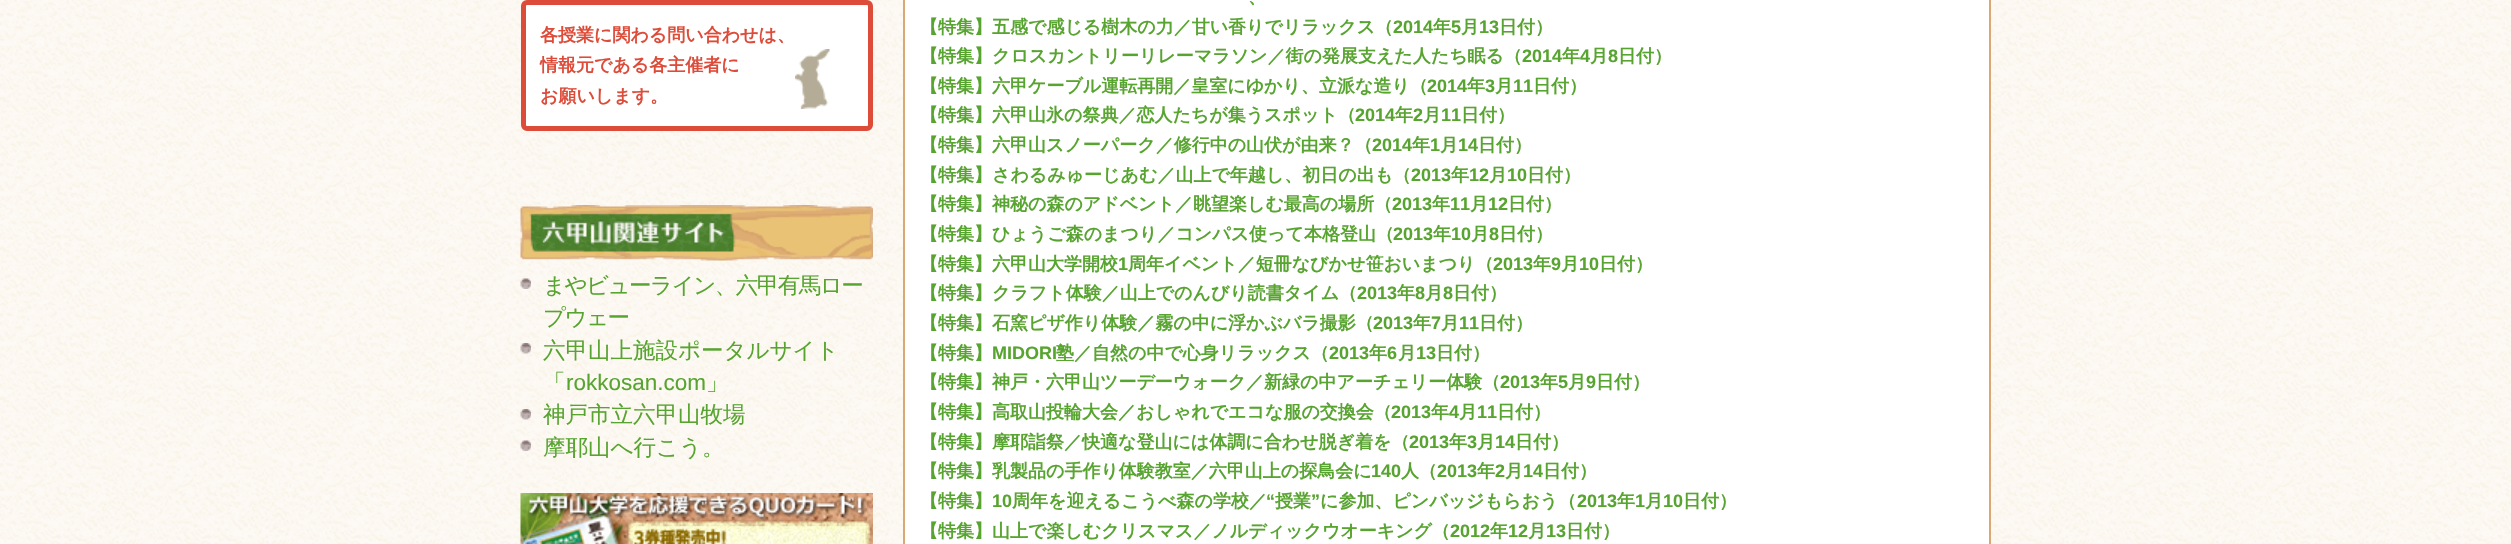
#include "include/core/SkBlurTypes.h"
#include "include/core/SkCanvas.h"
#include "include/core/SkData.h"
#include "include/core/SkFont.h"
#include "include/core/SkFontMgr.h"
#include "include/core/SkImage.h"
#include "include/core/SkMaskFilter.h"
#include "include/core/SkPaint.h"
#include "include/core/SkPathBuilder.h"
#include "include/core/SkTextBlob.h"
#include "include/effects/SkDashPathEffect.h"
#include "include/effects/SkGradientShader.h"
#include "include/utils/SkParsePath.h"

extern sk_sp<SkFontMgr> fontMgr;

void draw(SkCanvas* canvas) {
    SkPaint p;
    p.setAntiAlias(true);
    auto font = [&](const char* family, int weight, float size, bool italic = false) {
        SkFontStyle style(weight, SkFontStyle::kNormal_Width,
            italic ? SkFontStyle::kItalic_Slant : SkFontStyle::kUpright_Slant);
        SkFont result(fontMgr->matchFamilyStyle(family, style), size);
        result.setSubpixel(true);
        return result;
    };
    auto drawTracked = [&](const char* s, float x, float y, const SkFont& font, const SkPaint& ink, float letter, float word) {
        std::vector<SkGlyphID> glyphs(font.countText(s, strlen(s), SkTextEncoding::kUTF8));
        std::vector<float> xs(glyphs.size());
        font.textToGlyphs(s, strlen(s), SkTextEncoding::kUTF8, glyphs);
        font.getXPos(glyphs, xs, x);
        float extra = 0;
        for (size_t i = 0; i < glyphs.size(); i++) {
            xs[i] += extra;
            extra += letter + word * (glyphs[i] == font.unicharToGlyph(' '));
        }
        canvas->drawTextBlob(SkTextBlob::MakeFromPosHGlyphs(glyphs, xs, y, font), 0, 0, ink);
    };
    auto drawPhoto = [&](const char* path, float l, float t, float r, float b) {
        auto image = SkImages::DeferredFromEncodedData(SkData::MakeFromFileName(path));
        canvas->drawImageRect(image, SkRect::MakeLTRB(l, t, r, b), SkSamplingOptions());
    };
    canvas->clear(0xFFFFFFFF);
    drawPhoto("media/1.png", 0, 0, 2511, 544);
    p.setColor(0xFFFFFFFF);
    canvas->drawRoundRect(SkRect::MakeLTRB(521, 0, 873, 131), 6, 6, p);
    drawPhoto("media/2.png", 795, 49, 830, 109);
    p.setStyle(SkPaint::kStroke_Style);
    p.setStrokeWidth(5);
    p.setColor(0xFFDD4B39);
    canvas->drawRoundRect(SkRect::MakeLTRB(523.5f, 2.5f, 870.5f, 128.5f), 3.5f, 3.5f, p);
    auto font1 = font("WenQuanYi Zen Hei", 700, 18);
    p.setStyle(SkPaint::kFill_Style);
    {
        const struct { const char* s; float x, y; } items[] = {
            {"各授業に関わる問い合わせは、", 540, 41},
            {"情報元である各主催者に", 540, 71},
            {"お願いします。", 540, 102},
        };
        for (auto [s, x, y] : items) {
            canvas->drawString(s, x, y, font1, p);
        }
    }
    drawPhoto("media/3.png", 520, 205, 873, 261);
    drawPhoto("media/4.png", 520, 278, 531, 289);
    auto font2 = font("WenQuanYi Zen Hei", 500, 22.5f);
    p.setColor(0xFF58A430);
    drawTracked("まやビューライン、六甲有馬ロー", 543, 293, font2, p, -1.5f, 0);
    drawTracked("プウェー", 543, 325, font2, p, -1.5f, 0);
    drawPhoto("media/5.png", 520, 343, 531, 354);
    canvas->drawString("六甲山上施設ポータルサイト", 543, 358, font2, p);
    canvas->drawString("「", 543, 390, font2, p);
    auto font3 = font("Liberation Sans", 400, 22.5f);
    canvas->drawString("rokkosan.com", 566, 390, font3, p);
    canvas->drawString("」", 706, 390, font2, p);
    drawPhoto("media/6.png", 520, 409, 531, 420);
    canvas->drawString("神戸市立六甲山牧場", 543, 422, font2, p);
    drawPhoto("media/7.png", 520, 440, 531, 451);
    canvas->drawString("摩耶山へ行こう。", 543, 455, font2, p);
    drawPhoto("media/8.png", 520, 493, 873, 544);
    p.setColor(0xFFFFFFFF);
    canvas->drawRect(SkRect::MakeLTRB(904, -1, 1990, 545), p);
    p.setStyle(SkPaint::kStroke_Style);
    p.setStrokeWidth(2);
    p.setColor(0xFFDBA873);
    canvas->drawRect(SkRect::MakeLTRB(904, -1, 1990, 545), p);
    p.setStyle(SkPaint::kFill_Style);
    p.setColor(0xFF58A430);
    canvas->drawString("、", 1248, 3, font1, p);
    canvas->drawString("【特集】五感で感じる樹木の力／甘い香りでリラックス（", 920, 33, font1, p);
    auto font4 = font("Liberation Sans", 700, 18);
    canvas->drawString("2014", 1393, 33, font4, p);
    canvas->drawString("年", 1433, 33, font1, p);
    canvas->drawString("5", 1451, 33, font4, p);
    canvas->drawString("月", 1461, 33, font1, p);
    canvas->drawString("13", 1479, 33, font4, p);
    canvas->drawString("日付）", 1499, 33, font1, p);
    canvas->drawString("【特集】クロスカントリーリレーマラソン／街の発展支えた人たち眠る（", 920, 62, font1, p);
    canvas->drawString("2014", 1522, 62, font4, p);
    canvas->drawString("年", 1562, 62, font1, p);
    canvas->drawString("4", 1580, 62, font4, p);
    canvas->drawString("月", 1590, 62, font1, p);
    canvas->drawString("8", 1608, 62, font4, p);
    canvas->drawString("日付）", 1618, 62, font1, p);
    canvas->drawString("【特集】六甲ケーブル運転再開／皇室にゆかり、立派な造り（", 920, 92, font1, p);
    canvas->drawString("2014", 1427, 92, font4, p);
    canvas->drawString("年", 1467, 92, font1, p);
    canvas->drawString("3", 1485, 92, font4, p);
    canvas->drawString("月", 1495, 92, font1, p);
    canvas->drawString("11", 1513, 92, font4, p);
    canvas->drawString("日付）", 1533, 92, font1, p);
    canvas->drawString("【特集】六甲山氷の祭典／恋人たちが集うスポット（", 920, 121, font1, p);
    canvas->drawString("2014", 1355, 121, font4, p);
    canvas->drawString("年", 1395, 121, font1, p);
    canvas->drawString("2", 1413, 121, font4, p);
    canvas->drawString("月", 1423, 121, font1, p);
    canvas->drawString("11", 1441, 121, font4, p);
    canvas->drawString("日付）", 1461, 121, font1, p);
    canvas->drawString("【特集】六甲山スノーパーク／修行中の山伏が由来？（", 920, 151, font1, p);
    canvas->drawString("2014", 1372, 151, font4, p);
    canvas->drawString("年", 1412, 151, font1, p);
    canvas->drawString("1", 1430, 151, font4, p);
    canvas->drawString("月", 1440, 151, font1, p);
    canvas->drawString("14", 1458, 151, font4, p);
    canvas->drawString("日付）", 1478, 151, font1, p);
    canvas->drawString("【特集】さわるみゅーじあむ／山上で年越し、初日の出も（", 920, 181, font1, p);
    canvas->drawString("2013", 1411, 181, font4, p);
    canvas->drawString("年", 1451, 181, font1, p);
    canvas->drawString("12", 1469, 181, font4, p);
    canvas->drawString("月", 1489, 181, font1, p);
    canvas->drawString("10", 1507, 181, font4, p);
    canvas->drawString("日付）", 1527, 181, font1, p);
    canvas->drawString("【特集】神秘の森のアドベント／眺望楽しむ最高の場所（", 920, 210, font1, p);
    canvas->drawString("2013", 1392, 210, font4, p);
    canvas->drawString("年", 1432, 210, font1, p);
    canvas->drawString("11", 1450, 210, font4, p);
    canvas->drawString("月", 1470, 210, font1, p);
    canvas->drawString("12", 1488, 210, font4, p);
    canvas->drawString("日付）", 1508, 210, font1, p);
    canvas->drawString("【特集】ひょうご森のまつり／コンパス使って本格登山（", 920, 240, font1, p);
    canvas->drawString("2013", 1393, 240, font4, p);
    canvas->drawString("年", 1433, 240, font1, p);
    canvas->drawString("10", 1451, 240, font4, p);
    canvas->drawString("月", 1471, 240, font1, p);
    canvas->drawString("8", 1489, 240, font4, p);
    canvas->drawString("日付）", 1499, 240, font1, p);
    canvas->drawString("【特集】六甲山大学開校", 920, 270, font1, p);
    canvas->drawString("1", 1118, 270, font4, p);
    canvas->drawString("周年イベント／短冊なびかせ笹おいまつり（", 1128, 270, font1, p);
    canvas->drawString("2013", 1493, 270, font4, p);
    canvas->drawString("年", 1533, 270, font1, p);
    canvas->drawString("9", 1551, 270, font4, p);
    canvas->drawString("月", 1561, 270, font1, p);
    canvas->drawString("10", 1579, 270, font4, p);
    canvas->drawString("日付）", 1599, 270, font1, p);
    canvas->drawString("【特集】クラフト体験／山上でのんびり読書タイム（", 920, 299, font1, p);
    canvas->drawString("2013", 1357, 299, font4, p);
    canvas->drawString("年", 1397, 299, font1, p);
    canvas->drawString("8", 1415, 299, font4, p);
    canvas->drawString("月", 1425, 299, font1, p);
    canvas->drawString("8", 1443, 299, font4, p);
    canvas->drawString("日付）", 1453, 299, font1, p);
    canvas->drawString("【特集】石窯ピザ作り体験／霧の中に浮かぶバラ撮影（", 920, 329, font1, p);
    canvas->drawString("2013", 1373, 329, font4, p);
    canvas->drawString("年", 1413, 329, font1, p);
    canvas->drawString("7", 1431, 329, font4, p);
    canvas->drawString("月", 1441, 329, font1, p);
    canvas->drawString("11", 1459, 329, font4, p);
    canvas->drawString("日付）", 1479, 329, font1, p);
    canvas->drawString("【特集】", 920, 359, font1, p);
    canvas->drawString("MIDORI", 992, 359, font4, p);
    canvas->drawString("塾／自然の中で心身リラックス（", 1056, 359, font1, p);
    canvas->drawString("2013", 1329, 359, font4, p);
    canvas->drawString("年", 1369, 359, font1, p);
    canvas->drawString("6", 1387, 359, font4, p);
    canvas->drawString("月", 1398, 359, font1, p);
    canvas->drawString("13", 1416, 359, font4, p);
    canvas->drawString("日付）", 1436, 359, font1, p);
    canvas->drawString("【特集】神戸・六甲山ツーデーウォーク／新緑の中アーチェリー体験（", 920, 388, font1, p);
    canvas->drawString("2013", 1500, 388, font4, p);
    canvas->drawString("年", 1540, 388, font1, p);
    canvas->drawString("5", 1558, 388, font4, p);
    canvas->drawString("月", 1568, 388, font1, p);
    canvas->drawString("9", 1586, 388, font4, p);
    canvas->drawString("日付）", 1596, 388, font1, p);
    canvas->drawString("【特集】高取山投輪大会／おしゃれでエコな服の交換会（", 920, 418, font1, p);
    canvas->drawString("2013", 1391, 418, font4, p);
    canvas->drawString("年", 1431, 418, font1, p);
    canvas->drawString("4", 1449, 418, font4, p);
    canvas->drawString("月", 1459, 418, font1, p);
    canvas->drawString("11", 1477, 418, font4, p);
    canvas->drawString("日付）", 1497, 418, font1, p);
    canvas->drawString("【特集】摩耶詣祭／快適な登山には体調に合わせ脱ぎ着を（", 920, 448, font1, p);
    canvas->drawString("2013", 1409, 448, font4, p);
    canvas->drawString("年", 1449, 448, font1, p);
    canvas->drawString("3", 1467, 448, font4, p);
    canvas->drawString("月", 1477, 448, font1, p);
    canvas->drawString("14", 1495, 448, font4, p);
    canvas->drawString("日付）", 1515, 448, font1, p);
    canvas->drawString("【特集】乳製品の手作り体験教室／六甲山上の探鳥会に", 920, 477, font1, p);
    canvas->drawString("140", 1371, 477, font4, p);
    canvas->drawString("人（", 1401, 477, font1, p);
    canvas->drawString("2013", 1437, 477, font4, p);
    canvas->drawString("年", 1477, 477, font1, p);
    canvas->drawString("2", 1495, 477, font4, p);
    canvas->drawString("月", 1505, 477, font1, p);
    canvas->drawString("14", 1523, 477, font4, p);
    canvas->drawString("日付）", 1543, 477, font1, p);
    canvas->drawString("【特集】", 920, 507, font1, p);
    canvas->drawString("10", 992, 507, font4, p);
    canvas->drawString("周年を迎えるこうべ森の学校／", 1012, 507, font1, p);
    canvas->drawString("“", 1266, 507, font4, p);
    canvas->drawString("授業", 1275, 507, font1, p);
    canvas->drawString("”", 1311, 507, font4, p);
    canvas->drawString("に参加、ピンバッジもらおう（", 1320, 507, font1, p);
    canvas->drawString("2013", 1577, 507, font4, p);
    canvas->drawString("年", 1617, 507, font1, p);
    canvas->drawString("1", 1635, 507, font4, p);
    canvas->drawString("月", 1645, 507, font1, p);
    canvas->drawString("10", 1663, 507, font4, p);
    canvas->drawString("日付）", 1683, 507, font1, p);
    canvas->drawString("【特集】山上で楽しむクリスマス／ノルディックウオーキング（", 920, 537, font1, p);
    canvas->drawString("2012", 1450, 537, font4, p);
    canvas->drawString("年", 1490, 537, font1, p);
    canvas->drawString("12", 1508, 537, font4, p);
    canvas->drawString("月", 1528, 537, font1, p);
    canvas->drawString("13", 1546, 537, font4, p);
    canvas->drawString("日付）", 1566, 537, font1, p);
}
